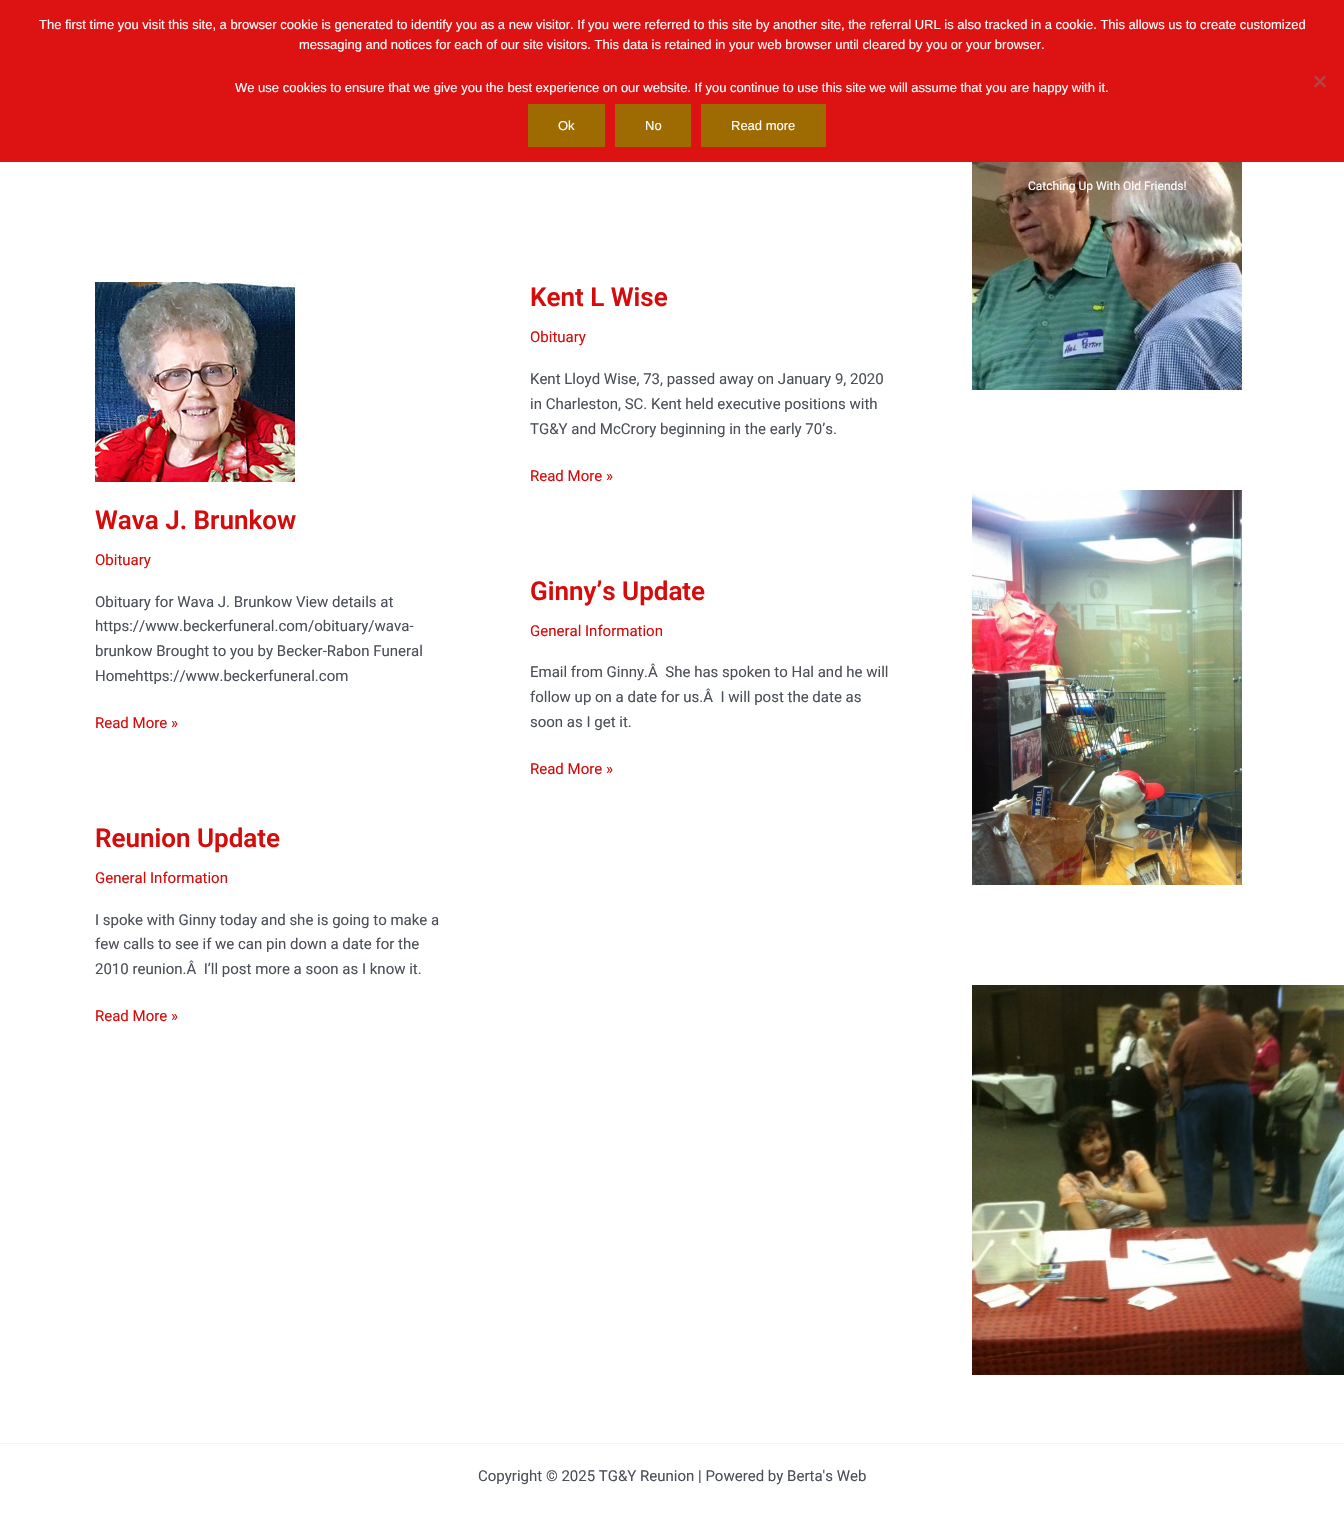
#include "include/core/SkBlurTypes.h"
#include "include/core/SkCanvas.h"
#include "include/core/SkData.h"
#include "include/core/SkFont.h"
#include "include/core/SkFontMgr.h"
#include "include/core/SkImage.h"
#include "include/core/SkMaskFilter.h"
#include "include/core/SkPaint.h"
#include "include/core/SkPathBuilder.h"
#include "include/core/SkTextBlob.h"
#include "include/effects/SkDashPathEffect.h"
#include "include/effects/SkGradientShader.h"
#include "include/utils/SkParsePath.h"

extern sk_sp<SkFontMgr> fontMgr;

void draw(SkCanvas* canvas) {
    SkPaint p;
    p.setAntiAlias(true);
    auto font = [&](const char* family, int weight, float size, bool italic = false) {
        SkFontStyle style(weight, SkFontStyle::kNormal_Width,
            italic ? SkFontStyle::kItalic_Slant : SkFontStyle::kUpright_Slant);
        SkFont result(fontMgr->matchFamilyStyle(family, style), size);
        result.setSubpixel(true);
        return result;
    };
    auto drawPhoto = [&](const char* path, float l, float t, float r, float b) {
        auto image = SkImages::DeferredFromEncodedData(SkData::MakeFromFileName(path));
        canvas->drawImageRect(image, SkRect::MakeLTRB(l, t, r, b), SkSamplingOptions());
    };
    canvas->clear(0xFFFFFFFF);
    p.setColor(0xFFDD1313);
    canvas->drawRect(SkRect::MakeLTRB(0, 0, 1344, 162), p);
    auto font1 = font("Liberation Sans", 400, 13);
    p.setColor(0xFFFFFFFF);
    {
        const struct { const char* s; float x, y; } items[] = {
            {"The first time you visit this site, a browser cookie is generated to identify you as a new visitor. If you were referred to this site by another site, the referral URL is also tracked in a cookie. This allows us to create customized", 39, 29},
            {"messaging and notices for each of our site visitors. This data is retained in your web browser until cleared by you or your browser.", 299, 49},
            {"We use cookies to ensure that we give you the best experience on our website. If you continue to use this site we will assume that you are happy with it.", 235, 92},
        };
        for (auto [s, x, y] : items) {
            canvas->drawString(s, x, y, font1, p);
        }
    }
    p.setColor(0xFFAF4A4A);
    canvas->drawPath(SkPathBuilder().moveTo(1324.5f, 75.5f).lineTo(1326, 77).lineTo(1315.5f, 87.5f).lineTo(1314, 86).close().detach(), p);
    canvas->drawPath(SkPathBuilder().moveTo(1314, 77).lineTo(1315.5f, 75.5f).lineTo(1326, 86).lineTo(1324.5f, 87.5f).close().detach(), p);
    p.setColor(0xFF9E6B03);
    canvas->drawRect(SkRect::MakeLTRB(528, 104, 605, 147), p);
    p.setColor(0xFFFFFFFF);
    canvas->drawString("Ok", 558, 130, font1, p);
    p.setColor(0xFF9E6B03);
    canvas->drawRect(SkRect::MakeLTRB(615, 104, 691, 147), p);
    p.setColor(0xFFFFFFFF);
    canvas->drawString("No", 645, 130, font1, p);
    p.setColor(0xFF9E6B03);
    canvas->drawRect(SkRect::MakeLTRB(701, 104, 826, 147), p);
    p.setColor(0xFFFFFFFF);
    canvas->drawString("Read more", 731, 130, font1, p);
    drawPhoto("media/1.png", 972, 162, 1242, 390);
    auto font2 = font("Roboto", 400, 12);
    canvas->drawString("Catching Up With Old Friends!", 1028, 190, font2, p);
    drawPhoto("media/2.png", 972, 490, 1242, 885);
    drawPhoto("media/3.png", 972, 985, 1344, 1375);
    auto font3 = font("Roboto", 600, 26);
    p.setColor(0xFFD60B0B);
    canvas->drawString("Kent L Wise", 530, 306, font3, p);
    auto font4 = font("Roboto", 400, 15);
    canvas->drawString("Obituary", 530, 342, font4, p);
    p.setColor(0xFF4B4F58);
    {
        const struct { const char* s; float x, y; } items[] = {
            {"Kent Lloyd Wise, 73, passed away on January 9, 2020", 530, 384},
            {"in Charleston, SC. Kent held executive positions with", 530, 409},
            {"TG&Y and McCrory beginning in the early 70’s.", 530, 434},
        };
        for (auto [s, x, y] : items) {
            canvas->drawString(s, x, y, font4, p);
        }
    }
    p.setColor(0xFFD60B0B);
    canvas->drawString("Read More »", 530, 481, font4, p);
    drawPhoto("media/4.png", 95, 282, 295, 482);
    canvas->drawString("Wava J. Brunkow", 95, 529, font3, p);
    canvas->drawString("Obituary", 95, 565, font4, p);
    p.setColor(0xFF4B4F58);
    {
        const struct { const char* s; float x, y; } items[] = {
            {"Obituary for Wava J. Brunkow View details at", 95, 607},
            {"https://www.beckerfuneral.com/obituary/wava-", 95, 631},
            {"brunkow Brought to you by Becker-Rabon Funeral", 95, 656},
            {"Homehttps://www.beckerfuneral.com", 95, 681},
        };
        for (auto [s, x, y] : items) {
            canvas->drawString(s, x, y, font4, p);
        }
    }
    p.setColor(0xFFD60B0B);
    canvas->drawString("Read More »", 95, 728, font4, p);
    canvas->drawString("Ginny’s Update", 530, 600, font3, p);
    canvas->drawString("General Information", 530, 636, font4, p);
    p.setColor(0xFF4B4F58);
    {
        const struct { const char* s; float x, y; } items[] = {
            {"Email from Ginny.Â  She has spoken to Hal and he will", 530, 677},
            {"follow up on a date for us.Â  I will post the date as", 530, 702},
            {"soon as I get it.", 530, 727},
        };
        for (auto [s, x, y] : items) {
            canvas->drawString(s, x, y, font4, p);
        }
    }
    p.setColor(0xFFD60B0B);
    canvas->drawString("Read More »", 530, 774, font4, p);
    canvas->drawString("Reunion Update", 95, 847, font3, p);
    canvas->drawString("General Information", 95, 883, font4, p);
    p.setColor(0xFF4B4F58);
    {
        const struct { const char* s; float x, y; } items[] = {
            {"I spoke with Ginny today and she is going to make a", 95, 925},
            {"few calls to see if we can pin down a date for the", 95, 949},
            {"2010 reunion.Â  I’ll post more a soon as I know it.", 95, 974},
        };
        for (auto [s, x, y] : items) {
            canvas->drawString(s, x, y, font4, p);
        }
    }
    p.setColor(0xFFD60B0B);
    canvas->drawString("Read More »", 95, 1021, font4, p);
    p.setColor(0xFFF2F5F7);
    canvas->drawRect(SkRect::MakeLTRB(0, 1443, 1344, 1444), p);
    p.setColor(0xFF4B4F58);
    canvas->drawString("Copyright © 2025 TG&Y Reunion | Powered by Berta's Web", 478, 1481, font4, p);
}
